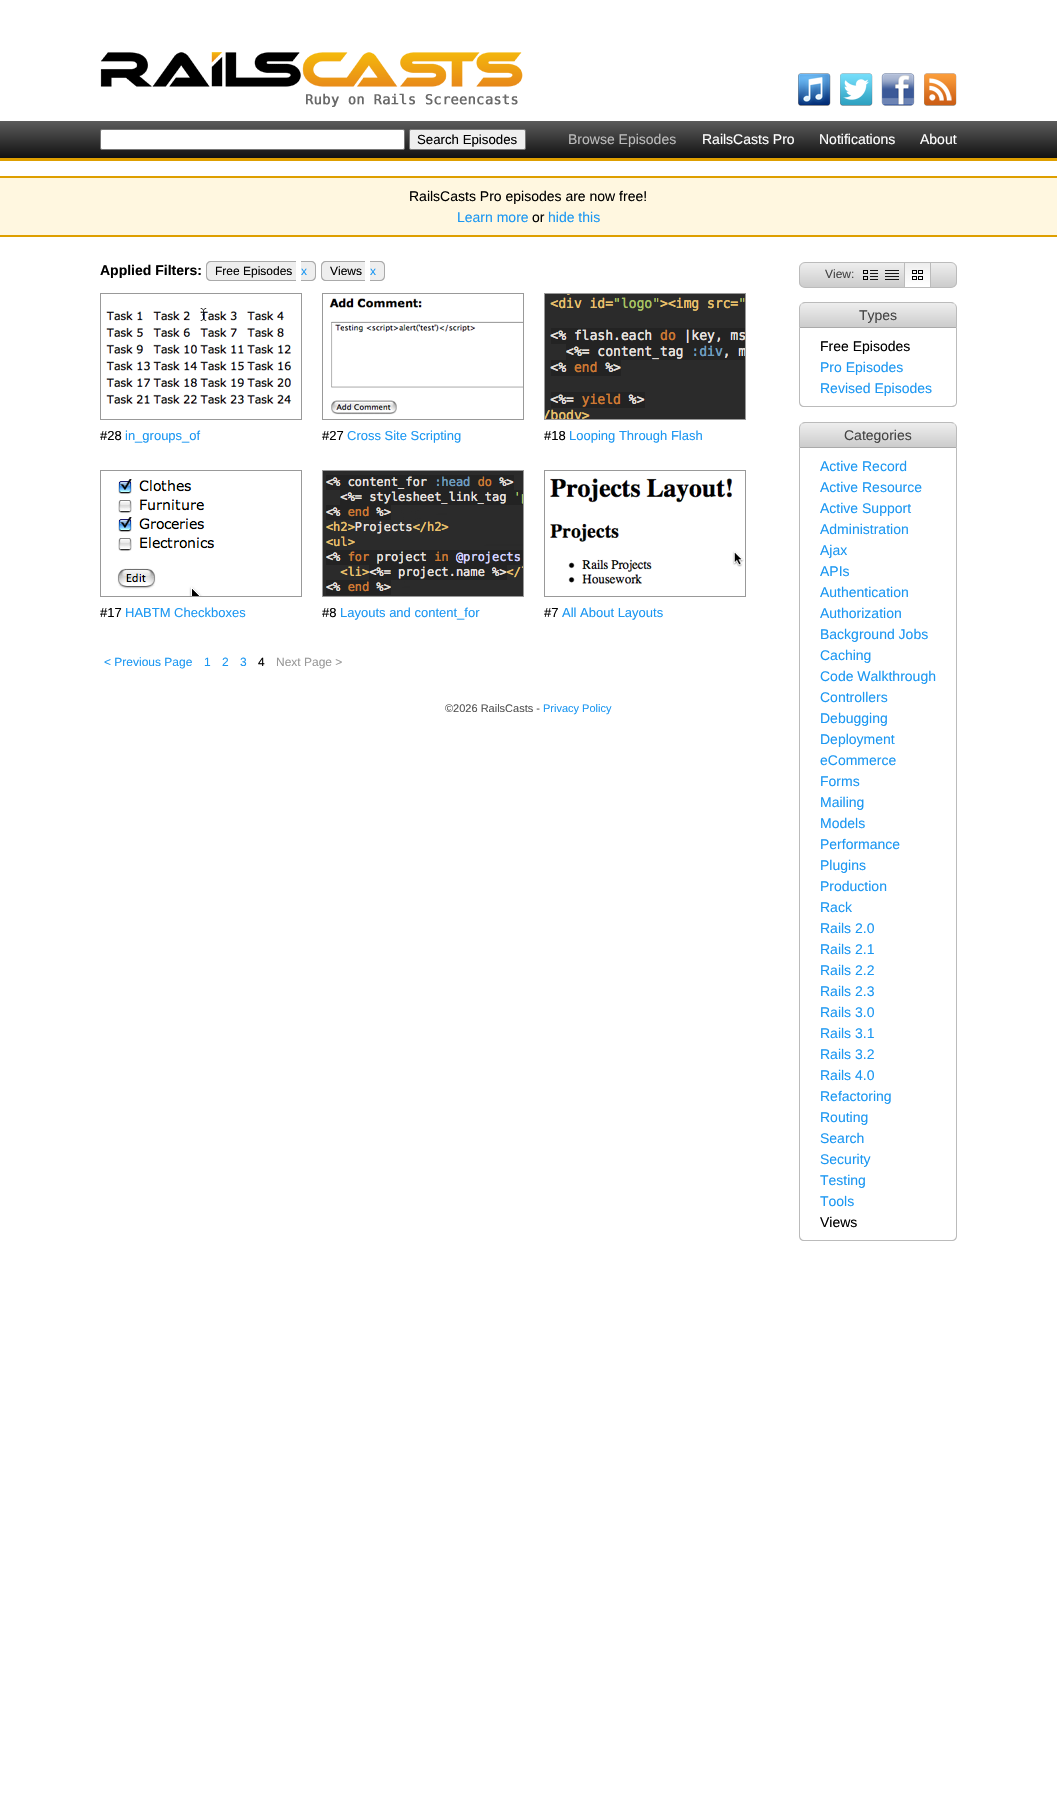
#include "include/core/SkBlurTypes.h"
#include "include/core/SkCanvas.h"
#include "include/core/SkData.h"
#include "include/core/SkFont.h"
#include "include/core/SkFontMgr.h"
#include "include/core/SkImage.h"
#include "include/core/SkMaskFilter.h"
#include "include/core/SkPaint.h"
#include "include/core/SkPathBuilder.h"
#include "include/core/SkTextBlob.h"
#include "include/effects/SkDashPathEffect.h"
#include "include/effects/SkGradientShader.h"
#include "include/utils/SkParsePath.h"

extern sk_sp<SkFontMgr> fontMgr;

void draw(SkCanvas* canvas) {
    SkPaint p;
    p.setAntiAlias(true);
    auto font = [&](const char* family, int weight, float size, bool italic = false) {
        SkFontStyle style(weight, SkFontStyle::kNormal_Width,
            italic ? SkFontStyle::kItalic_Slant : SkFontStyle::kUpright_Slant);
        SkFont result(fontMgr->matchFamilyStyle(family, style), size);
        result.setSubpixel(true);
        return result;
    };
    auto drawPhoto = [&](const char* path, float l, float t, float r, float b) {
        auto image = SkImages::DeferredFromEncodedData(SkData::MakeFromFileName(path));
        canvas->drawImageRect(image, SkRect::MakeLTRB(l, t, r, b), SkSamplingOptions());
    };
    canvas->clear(0xFFFFFFFF);
    drawPhoto("media/1.png", 100, 51, 523, 107);
    drawPhoto("media/2.png", 798, 73, 831, 106);
    drawPhoto("media/3.png", 840, 73, 873, 106);
    drawPhoto("media/4.png", 881, 73, 915, 106);
    drawPhoto("media/5.png", 924, 73, 957, 106);
    {
        const SkColor colors[] = {0xFF5C5C5C, 0xFF111111};
        const float stops[] = {0, 1};
        const SkPoint ends[] = {{0, 121}, {0, 158}};
        p.setShader(SkGradientShader::MakeLinear(ends, colors, stops, 2, SkTileMode::kClamp));
        p.setAlpha(255);
    }
    canvas->drawRect(SkRect::MakeLTRB(0, 121, 1057, 158), p);
    p.setShader(nullptr);
    p.setColor(0xFFDE9F00);
    canvas->drawRect(SkRect::MakeLTRB(0, 158, 1057, 161), p);
    p.setColor(0xFFFFFFFF);
    canvas->drawRoundRect(SkRect::MakeLTRB(100.5f, 129.5f, 404.5f, 149.5f), 1.5f, 1.5f, p);
    p.setStyle(SkPaint::kStroke_Style);
    p.setStrokeWidth(1);
    p.setColor(0xFF767676);
    canvas->drawRoundRect(SkRect::MakeLTRB(100.5f, 129.5f, 404.5f, 149.5f), 1.5f, 1.5f, p);
    p.setStyle(SkPaint::kFill_Style);
    p.setColor(0xFFEFEFEF);
    canvas->drawRoundRect(SkRect::MakeLTRB(409.5f, 129.5f, 525.5f, 149.5f), 1.5f, 1.5f, p);
    p.setStyle(SkPaint::kStroke_Style);
    p.setColor(0xFF767676);
    canvas->drawRoundRect(SkRect::MakeLTRB(409.5f, 129.5f, 525.5f, 149.5f), 1.5f, 1.5f, p);
    auto font1 = font("Liberation Sans", 400, 13.25f);
    p.setStyle(SkPaint::kFill_Style);
    p.setColor(0xFF000000);
    canvas->drawString("Search Episodes", 417, 144, font1, p);
    auto font2 = font("Liberation Sans", 400, 14);
    p.setColor(0xFFBBBBBB);
    canvas->drawString("Browse Episodes", 568, 144, font2, p);
    p.setColor(0xFFFFFFFF);
    {
        const struct { const char* s; float x, y; } items[] = {
            {"RailsCasts Pro", 702, 144},
            {"Notifications", 819, 144},
            {"About", 920, 144},
        };
        for (auto [s, x, y] : items) {
            canvas->drawString(s, x, y, font2, p);
        }
    }
    {
        const struct { float l, t, r, b; SkColor color; } items[] = {
            {0, 178, 1057, 235, 0xFFFFF7E0},
            {0, 176, 1057, 178, 0xFFDE9F00},
            {0, 235, 1057, 237, 0xFFDE9F00},
        };
        for (auto [l, t, r, b, color] : items) {
            p.setColor(color);
            canvas->drawRect(SkRect::MakeLTRB(l, t, r, b), p);
        }
    }
    p.setColor(0xFF000000);
    canvas->drawString("RailsCasts Pro episodes are now free!", 409, 201, font2, p);
    p.setColor(0xFF1B97F2);
    canvas->drawString("Learn more", 457, 222, font2, p);
    p.setColor(0xFF000000);
    canvas->drawString("or", 532, 222, font2, p);
    p.setColor(0xFF1B97F2);
    canvas->drawString("hide this", 548, 222, font2, p);
    auto font3 = font("Liberation Sans", 700, 14);
    p.setColor(0xFF000000);
    canvas->drawString("Applied Filters:", 100, 275, font3, p);
    p.setColor(0xFFEEEEEE);
    canvas->drawPath(SkPathBuilder().moveTo(211, 261).lineTo(296, 261).lineTo(296, 281).lineTo(211, 281).cubicTo(208, 281, 206, 279, 206, 276).lineTo(206, 266).cubicTo(206, 263, 208, 261, 211, 261).close().detach(), p);
    p.setColor(0xFFAAAAAA);
    canvas->drawPath(SkPathBuilder(SkPathFillType::kEvenOdd).moveTo(211, 261).lineTo(296, 261).lineTo(296, 281).lineTo(211, 281).cubicTo(208, 281, 206, 279, 206, 276).lineTo(206, 266).cubicTo(206, 263, 208, 261, 211, 261).close().moveTo(211, 262).lineTo(296, 262).lineTo(296, 280).lineTo(211, 280).cubicTo(209, 280, 207, 278, 207, 276).lineTo(207, 266).cubicTo(207, 264, 209, 262, 211, 262).close().detach(), p);
    auto font4 = font("Liberation Sans", 400, 12);
    p.setColor(0xFF000000);
    canvas->drawString("Free Episodes", 215, 275, font4, p);
    p.setColor(0xFFEEEEEE);
    canvas->drawPath(SkPathBuilder().moveTo(301, 261).lineTo(311, 261).cubicTo(314, 261, 316, 263, 316, 266).lineTo(316, 276).cubicTo(316, 279, 314, 281, 311, 281).lineTo(301, 281).close().detach(), p);
    p.setColor(0xFFAAAAAA);
    canvas->drawPath(SkPathBuilder(SkPathFillType::kEvenOdd).moveTo(301, 261).lineTo(311, 261).cubicTo(314, 261, 316, 263, 316, 266).lineTo(316, 276).cubicTo(316, 279, 314, 281, 311, 281).lineTo(301, 281).close().moveTo(301, 262).lineTo(311, 262).cubicTo(313, 262, 315, 264, 315, 266).lineTo(315, 276).cubicTo(315, 278, 313, 280, 311, 280).lineTo(301, 280).close().detach(), p);
    p.setColor(0xFF1B97F2);
    canvas->drawString("x", 301, 275, font4, p);
    p.setColor(0xFFEEEEEE);
    canvas->drawPath(SkPathBuilder().moveTo(326, 261).lineTo(365, 261).lineTo(365, 281).lineTo(326, 281).cubicTo(323, 281, 321, 279, 321, 276).lineTo(321, 266).cubicTo(321, 263, 323, 261, 326, 261).close().detach(), p);
    p.setColor(0xFFAAAAAA);
    canvas->drawPath(SkPathBuilder(SkPathFillType::kEvenOdd).moveTo(326, 261).lineTo(365, 261).lineTo(365, 281).lineTo(326, 281).cubicTo(323, 281, 321, 279, 321, 276).lineTo(321, 266).cubicTo(321, 263, 323, 261, 326, 261).close().moveTo(326, 262).lineTo(365, 262).lineTo(365, 280).lineTo(326, 280).cubicTo(324, 280, 322, 278, 322, 276).lineTo(322, 266).cubicTo(322, 264, 324, 262, 326, 262).close().detach(), p);
    p.setColor(0xFF000000);
    canvas->drawString("Views", 330, 275, font4, p);
    p.setColor(0xFFEEEEEE);
    canvas->drawPath(SkPathBuilder().moveTo(370, 261).lineTo(380, 261).cubicTo(383, 261, 385, 263, 385, 266).lineTo(385, 276).cubicTo(385, 279, 383, 281, 380, 281).lineTo(370, 281).close().detach(), p);
    p.setColor(0xFFAAAAAA);
    canvas->drawPath(SkPathBuilder(SkPathFillType::kEvenOdd).moveTo(370, 261).lineTo(380, 261).cubicTo(383, 261, 385, 263, 385, 266).lineTo(385, 276).cubicTo(385, 279, 383, 281, 380, 281).lineTo(370, 281).close().moveTo(370, 262).lineTo(380, 262).cubicTo(382, 262, 384, 264, 384, 266).lineTo(384, 276).cubicTo(384, 278, 382, 280, 380, 280).lineTo(370, 280).close().detach(), p);
    p.setColor(0xFF1B97F2);
    canvas->drawString("x", 370, 275, font4, p);
    p.setStyle(SkPaint::kStroke_Style);
    p.setColor(0xFF999999);
    canvas->drawRect(SkRect::MakeLTRB(100.5f, 293.5f, 301.5f, 419.5f), p);
    drawPhoto("media/6.png", 106, 308, 292, 404);
    auto font5 = font("Liberation Sans", 400, 13);
    p.setStyle(SkPaint::kFill_Style);
    p.setColor(0xFF000000);
    canvas->drawString("#28", 100, 440, font5, p);
    p.setColor(0xFF1B97F2);
    canvas->drawString("in_groups_of", 125, 440, font5, p);
    p.setStyle(SkPaint::kStroke_Style);
    p.setColor(0xFF999999);
    canvas->drawRect(SkRect::MakeLTRB(322.5f, 293.5f, 523.5f, 419.5f), p);
    drawPhoto("media/7.png", 329, 298, 523, 415);
    p.setStyle(SkPaint::kFill_Style);
    p.setColor(0xFF000000);
    canvas->drawString("#27", 322, 440, font5, p);
    p.setColor(0xFF1B97F2);
    canvas->drawString("Cross Site Scripting", 347, 440, font5, p);
    p.setStyle(SkPaint::kStroke_Style);
    p.setColor(0xFF999999);
    canvas->drawRect(SkRect::MakeLTRB(544.5f, 293.5f, 745.5f, 419.5f), p);
    drawPhoto("media/8.png", 545, 294, 745, 419);
    p.setStyle(SkPaint::kFill_Style);
    p.setColor(0xFF000000);
    canvas->drawString("#18", 544, 440, font5, p);
    p.setColor(0xFF1B97F2);
    canvas->drawString("Looping Through Flash", 569, 440, font5, p);
    p.setStyle(SkPaint::kStroke_Style);
    p.setColor(0xFF999999);
    canvas->drawRect(SkRect::MakeLTRB(100.5f, 470.5f, 301.5f, 596.5f), p);
    drawPhoto("media/9.png", 117, 479, 215, 596);
    p.setStyle(SkPaint::kFill_Style);
    p.setColor(0xFF000000);
    canvas->drawString("#17", 100, 617, font5, p);
    p.setColor(0xFF1B97F2);
    canvas->drawString("HABTM Checkboxes", 125, 617, font5, p);
    p.setStyle(SkPaint::kStroke_Style);
    p.setColor(0xFF999999);
    canvas->drawRect(SkRect::MakeLTRB(322.5f, 470.5f, 523.5f, 596.5f), p);
    drawPhoto("media/10.png", 323, 471, 523, 596);
    p.setStyle(SkPaint::kFill_Style);
    p.setColor(0xFF000000);
    canvas->drawString("#8", 322, 617, font5, p);
    p.setColor(0xFF1B97F2);
    canvas->drawString("Layouts and content_for", 340, 617, font5, p);
    p.setStyle(SkPaint::kStroke_Style);
    p.setColor(0xFF999999);
    canvas->drawRect(SkRect::MakeLTRB(544.5f, 470.5f, 745.5f, 596.5f), p);
    drawPhoto("media/11.png", 550, 478, 744, 584);
    p.setStyle(SkPaint::kFill_Style);
    p.setColor(0xFF000000);
    canvas->drawString("#7", 544, 617, font5, p);
    p.setColor(0xFF1B97F2);
    canvas->drawString("All About Layouts", 562, 617, font5, p);
    {
        const struct { const char* s; float x, y; } items[] = {
            {"< Previous Page", 104, 666},
            {"1", 204, 666},
            {"2", 222, 666},
            {"3", 240, 666},
        };
        for (auto [s, x, y] : items) {
            canvas->drawString(s, x, y, font4, p);
        }
    }
    p.setColor(0xFF000000);
    canvas->drawString("4", 258, 666, font4, p);
    p.setColor(0xFF999999);
    canvas->drawString("Next Page >", 276, 666, font4, p);
    canvas->save();
    canvas->clipPath(SkPathBuilder().moveTo(805, 262).lineTo(951, 262).cubicTo(954.5f, 262, 957, 264.5f, 957, 268).lineTo(957, 282).cubicTo(957, 285.5f, 954.5f, 288, 951, 288).lineTo(805, 288).cubicTo(801.5f, 288, 799, 285.5f, 799, 282).lineTo(799, 268).cubicTo(799, 264.5f, 801.5f, 262, 805, 262).close().detach(), true);
    {
        const SkColor colors[] = {0xFFEEEEEE, 0xFFCCCCCC};
        const float stops[] = {0, 1};
        const SkPoint ends[] = {{800, 263}, {800, 287}};
        p.setShader(SkGradientShader::MakeLinear(ends, colors, stops, 2, SkTileMode::kClamp));
        p.setAlpha(255);
    }
    canvas->drawRect(SkRect::MakeLTRB(799, 263, 957, 287), p);
    canvas->restore();
    p.setStyle(SkPaint::kStroke_Style);
    p.setShader(nullptr);
    p.setColor(0xFFBBBBBB);
    canvas->drawRoundRect(SkRect::MakeLTRB(799.5f, 262.5f, 956.5f, 287.5f), 5.5f, 5.5f, p);
    p.setStyle(SkPaint::kFill_Style);
    p.setColor(0xFF444444);
    canvas->drawString("View:", 825, 278, font4, p);
    drawPhoto("media/12.png", 863, 270, 878, 280);
    drawPhoto("media/13.png", 885, 270, 899, 280);
    p.setColor(0xFFBBBBBB);
    canvas->drawRect(SkRect::MakeLTRB(904, 263, 905, 287), p);
    {
        const SkColor colors[] = {0xFFEEEEEE, 0xFFFFFFFF};
        const float stops[] = {0, 1};
        const SkPoint ends[] = {{905, 263}, {905, 287}};
        p.setShader(SkGradientShader::MakeLinear(ends, colors, stops, 2, SkTileMode::kClamp));
        p.setAlpha(255);
    }
    canvas->drawRect(SkRect::MakeLTRB(905, 264, 930, 287), p);
    p.setShader(nullptr);
    p.setColor(0xFFBBBBBB);
    canvas->drawRect(SkRect::MakeLTRB(930, 263, 931, 287), p);
    drawPhoto("media/14.png", 912, 270, 923, 280);
    canvas->save();
    canvas->clipPath(SkPathBuilder().moveTo(805, 302).lineTo(951, 302).cubicTo(954.5f, 302, 957, 304.5f, 957, 308).lineTo(957, 328).lineTo(799, 328).lineTo(799, 308).cubicTo(799, 304.5f, 801.5f, 302, 805, 302).close().detach(), true);
    {
        const SkColor colors[] = {0xFFEEEEEE, 0xFFCCCCCC};
        const float stops[] = {0, 1};
        const SkPoint ends[] = {{800, 279}, {800, 303}};
        p.setShader(SkGradientShader::MakeLinear(ends, colors, stops, 2, SkTileMode::kClamp));
        p.setAlpha(255);
    }
    canvas->drawRect(SkRect::MakeLTRB(799, 302, 957, 303), p);
    {
        const SkColor colors[] = {0xFFEEEEEE, 0xFFCCCCCC};
        const float stops[] = {0, 1};
        const SkPoint ends[] = {{800, 303}, {800, 327}};
        p.setShader(SkGradientShader::MakeLinear(ends, colors, stops, 2, SkTileMode::kClamp));
        p.setAlpha(255);
    }
    canvas->drawRect(SkRect::MakeLTRB(799, 303, 957, 327), p);
    canvas->restore();
    p.setShader(nullptr);
    p.setColor(0xFFBBBBBB);
    canvas->drawPath(SkPathBuilder().moveTo(805, 302).cubicTo(804, 302, 802, 303, 801, 304).cubicTo(802, 304, 804, 303, 805, 303).lineTo(951, 303).cubicTo(952, 303, 954, 304, 955, 304).cubicTo(954, 303, 952, 302, 951, 302).close().detach(), p);
    canvas->drawPath(SkPathBuilder().moveTo(957, 328).lineTo(957, 308).cubicTo(957, 306.5f, 956, 305, 955, 304).lineTo(954.5f, 304.5f).cubicTo(955.5f, 305, 956, 306.5f, 956, 308).lineTo(956, 327).close().detach(), p);
    p.setColor(0xFFAAAAAA);
    canvas->drawPath(SkPathBuilder().moveTo(957, 328).lineTo(956, 327).lineTo(800, 327).lineTo(799, 328).close().detach(), p);
    p.setColor(0xFFBBBBBB);
    canvas->drawPath(SkPathBuilder().moveTo(799, 328).lineTo(800, 327).lineTo(800, 308).cubicTo(800, 306.5f, 800.5f, 305, 801.5f, 304.5f).lineTo(801, 304).cubicTo(800, 305, 799, 306.5f, 799, 308).close().detach(), p);
    p.setColor(0xFF444444);
    canvas->drawString("Types", 859, 320, font2, p);
    p.setColor(0xFFBBBBBB);
    canvas->drawPath(SkPathBuilder(SkPathFillType::kEvenOdd).moveTo(799, 328).lineTo(957, 328).lineTo(957, 402).cubicTo(957, 405, 955, 407, 952, 407).lineTo(804, 407).cubicTo(801, 407, 799, 405, 799, 402).close().moveTo(800, 328).lineTo(956, 328).lineTo(956, 403).lineTo(955, 405).lineTo(952, 406).lineTo(804, 406).cubicTo(802, 406, 800, 404, 800, 402).close().detach(), p);
    p.setColor(0xFF000000);
    canvas->drawString("Free Episodes", 820, 351, font2, p);
    p.setColor(0xFF1B97F2);
    canvas->drawString("Pro Episodes", 820, 372, font2, p);
    canvas->drawString("Revised Episodes", 820, 393, font2, p);
    canvas->save();
    canvas->clipPath(SkPathBuilder().moveTo(805, 422).lineTo(951, 422).cubicTo(954.5f, 422, 957, 424.5f, 957, 428).lineTo(957, 448).lineTo(799, 448).lineTo(799, 428).cubicTo(799, 424.5f, 801.5f, 422, 805, 422).close().detach(), true);
    {
        const SkColor colors[] = {0xFFEEEEEE, 0xFFCCCCCC};
        const float stops[] = {0, 1};
        const SkPoint ends[] = {{800, 399}, {800, 423}};
        p.setShader(SkGradientShader::MakeLinear(ends, colors, stops, 2, SkTileMode::kClamp));
        p.setAlpha(255);
    }
    canvas->drawRect(SkRect::MakeLTRB(799, 422, 957, 423), p);
    {
        const SkColor colors[] = {0xFFEEEEEE, 0xFFCCCCCC};
        const float stops[] = {0, 1};
        const SkPoint ends[] = {{800, 423}, {800, 447}};
        p.setShader(SkGradientShader::MakeLinear(ends, colors, stops, 2, SkTileMode::kClamp));
        p.setAlpha(255);
    }
    canvas->drawRect(SkRect::MakeLTRB(799, 423, 957, 447), p);
    canvas->restore();
    p.setShader(nullptr);
    p.setColor(0xFFBBBBBB);
    canvas->drawPath(SkPathBuilder().moveTo(805, 422).cubicTo(804, 422, 802, 423, 801, 424).cubicTo(802, 424, 804, 423, 805, 423).lineTo(951, 423).cubicTo(952, 423, 954, 424, 955, 424).cubicTo(954, 423, 952, 422, 951, 422).close().detach(), p);
    canvas->drawPath(SkPathBuilder().moveTo(957, 448).lineTo(957, 428).cubicTo(957, 426.5f, 956, 425, 955, 424).lineTo(954.5f, 424.5f).cubicTo(955.5f, 425, 956, 426.5f, 956, 428).lineTo(956, 447).close().detach(), p);
    p.setColor(0xFFAAAAAA);
    canvas->drawPath(SkPathBuilder().moveTo(957, 448).lineTo(956, 447).lineTo(800, 447).lineTo(799, 448).close().detach(), p);
    p.setColor(0xFFBBBBBB);
    canvas->drawPath(SkPathBuilder().moveTo(799, 448).lineTo(800, 447).lineTo(800, 428).cubicTo(800, 426.5f, 800.5f, 425, 801.5f, 424.5f).lineTo(801, 424).cubicTo(800, 425, 799, 426.5f, 799, 428).close().detach(), p);
    p.setColor(0xFF444444);
    canvas->drawString("Categories", 844, 440, font2, p);
    p.setColor(0xFFBBBBBB);
    canvas->drawPath(SkPathBuilder(SkPathFillType::kEvenOdd).moveTo(799, 448).lineTo(957, 448).lineTo(957, 1236).cubicTo(957, 1239, 955, 1241, 952, 1241).lineTo(804, 1241).cubicTo(801, 1241, 799, 1239, 799, 1236).close().moveTo(800, 448).lineTo(956, 448).lineTo(956, 1236).cubicTo(956, 1238, 954, 1240, 952, 1240).lineTo(804, 1240).cubicTo(802, 1240, 800, 1238, 800, 1236).close().detach(), p);
    p.setColor(0xFF1B97F2);
    {
        const struct { const char* s; float x, y; } items[] = {
            {"Active Record", 820, 471},
            {"Active Resource", 820, 492},
            {"Active Support", 820, 513},
            {"Administration", 820, 534},
            {"Ajax", 820, 555},
            {"APIs", 820, 576},
            {"Authentication", 820, 597},
            {"Authorization", 820, 618},
            {"Background Jobs", 820, 639},
            {"Caching", 820, 660},
            {"Code Walkthrough", 820, 681},
            {"Controllers", 820, 702},
            {"Debugging", 820, 723},
            {"Deployment", 820, 744},
            {"eCommerce", 820, 765},
            {"Forms", 820, 786},
            {"Mailing", 820, 807},
            {"Models", 820, 828},
            {"Performance", 820, 849},
            {"Plugins", 820, 870},
            {"Production", 820, 891},
            {"Rack", 820, 912},
            {"Rails 2.0", 820, 933},
            {"Rails 2.1", 820, 954},
            {"Rails 2.2", 820, 975},
            {"Rails 2.3", 820, 996},
            {"Rails 3.0", 820, 1017},
            {"Rails 3.1", 820, 1038},
            {"Rails 3.2", 820, 1059},
            {"Rails 4.0", 820, 1080},
            {"Refactoring", 820, 1101},
            {"Routing", 820, 1122},
            {"Search", 820, 1143},
            {"Security", 820, 1164},
            {"Testing", 820, 1185},
            {"Tools", 820, 1206},
        };
        for (auto [s, x, y] : items) {
            canvas->drawString(s, x, y, font2, p);
        }
    }
    p.setColor(0xFF000000);
    canvas->drawString("Views", 820, 1227, font2, p);
    auto font6 = font("Liberation Sans", 400, 11);
    p.setColor(0xFF555555);
    canvas->drawString("©2026 RailsCasts -", 445, 712, font6, p);
    p.setColor(0xFF1B97F2);
    canvas->drawString("Privacy Policy", 543, 712, font6, p);
}
